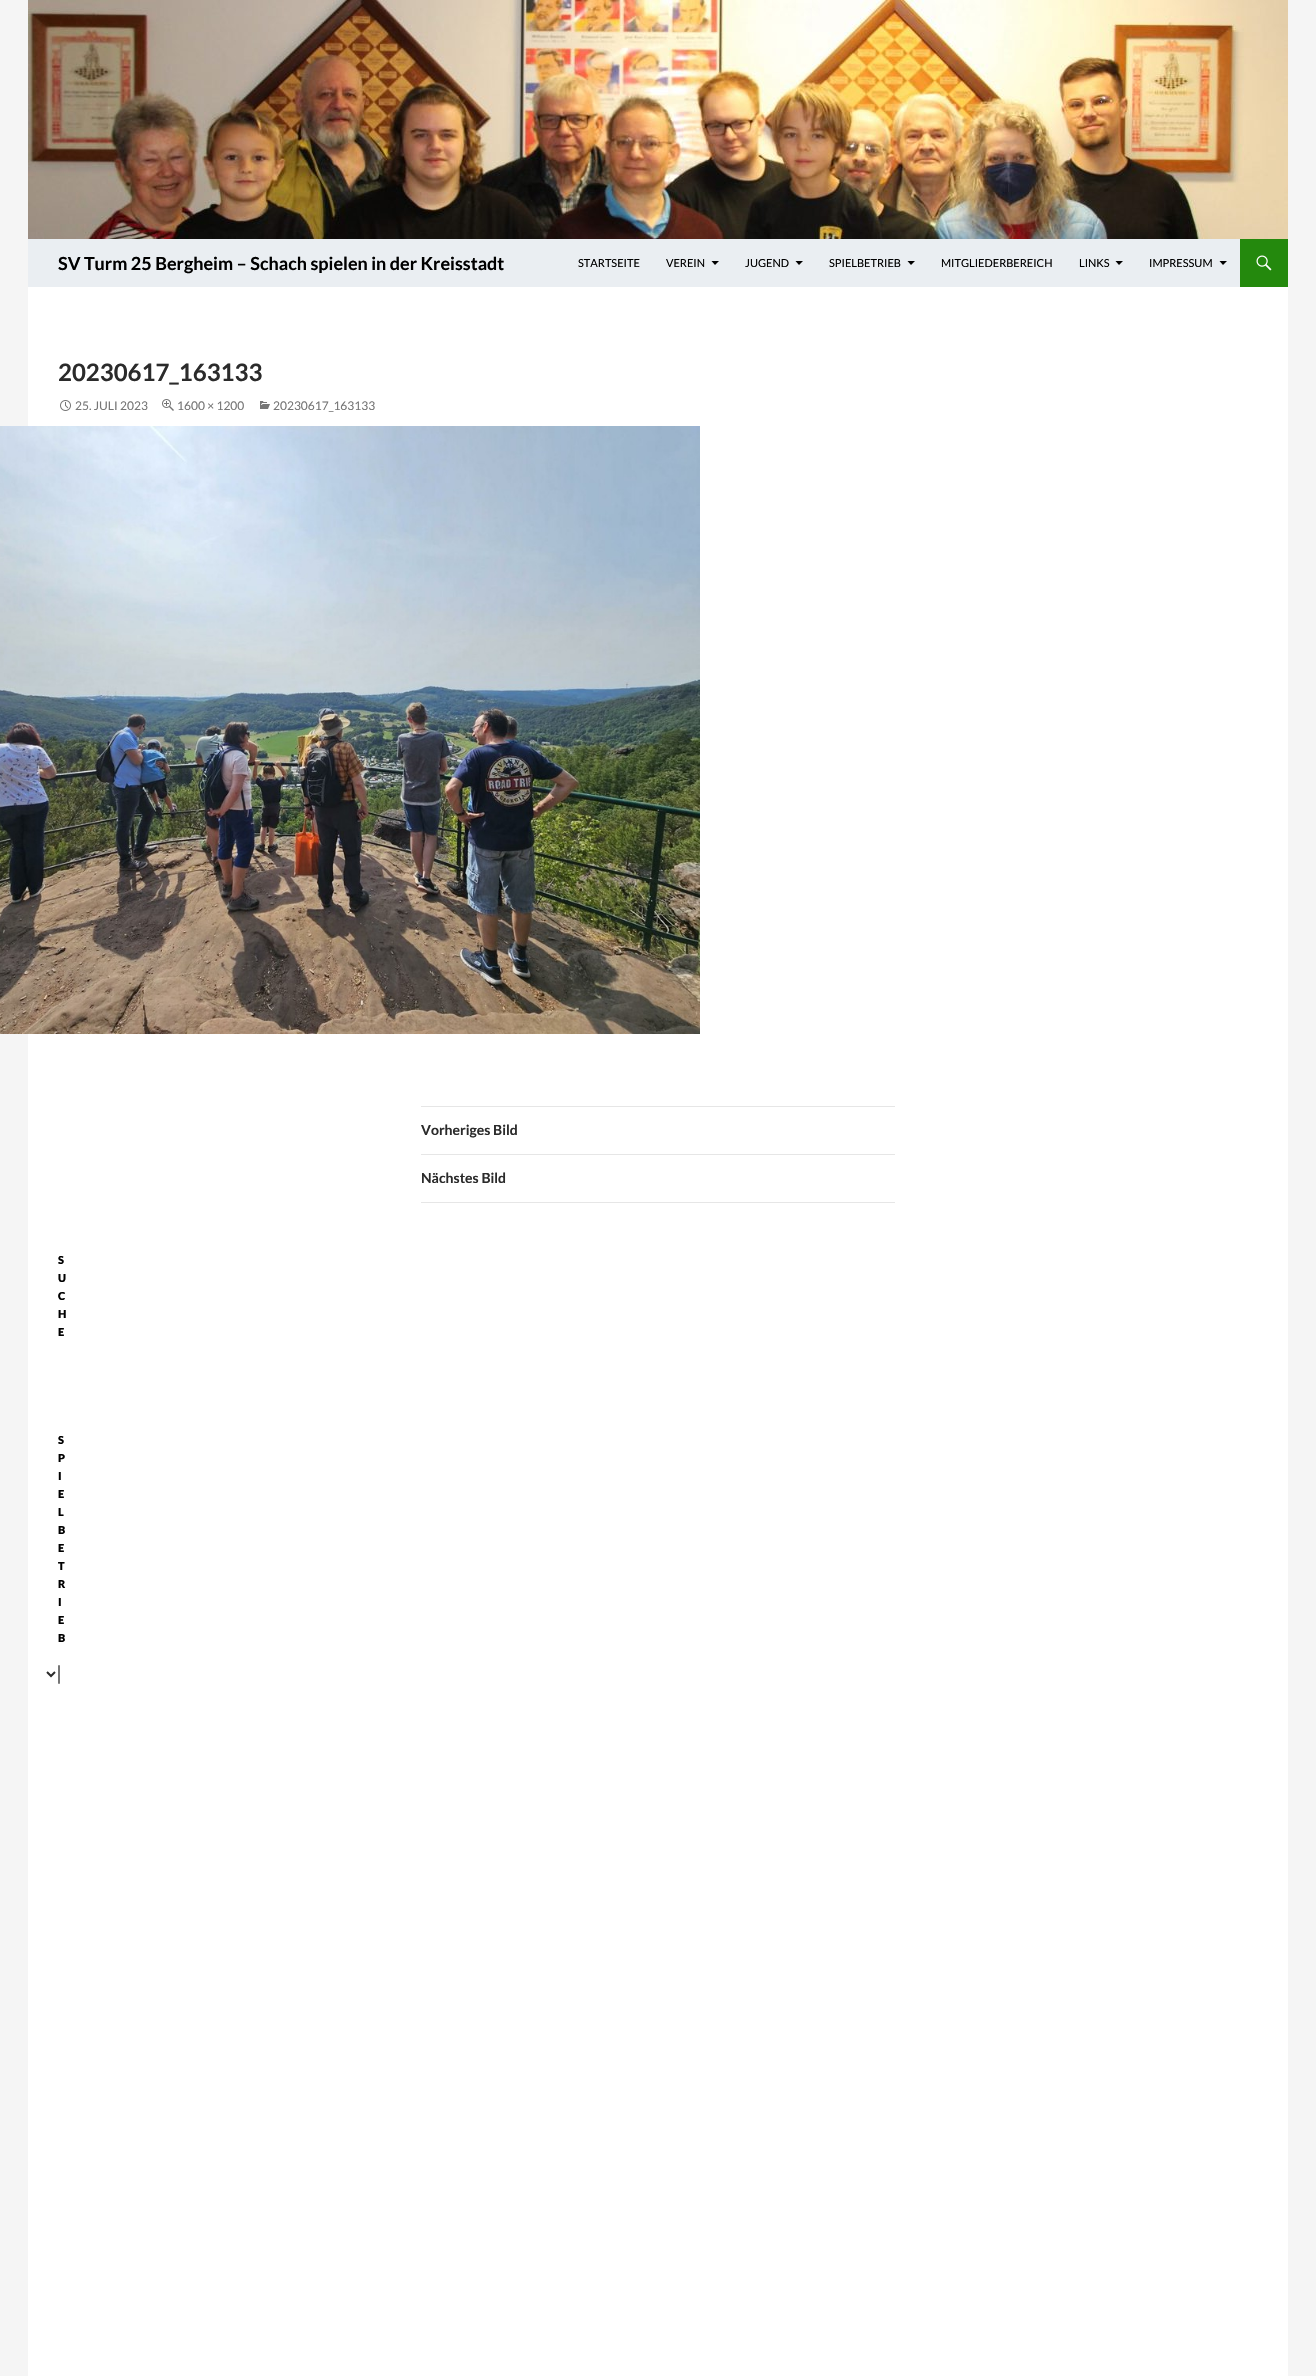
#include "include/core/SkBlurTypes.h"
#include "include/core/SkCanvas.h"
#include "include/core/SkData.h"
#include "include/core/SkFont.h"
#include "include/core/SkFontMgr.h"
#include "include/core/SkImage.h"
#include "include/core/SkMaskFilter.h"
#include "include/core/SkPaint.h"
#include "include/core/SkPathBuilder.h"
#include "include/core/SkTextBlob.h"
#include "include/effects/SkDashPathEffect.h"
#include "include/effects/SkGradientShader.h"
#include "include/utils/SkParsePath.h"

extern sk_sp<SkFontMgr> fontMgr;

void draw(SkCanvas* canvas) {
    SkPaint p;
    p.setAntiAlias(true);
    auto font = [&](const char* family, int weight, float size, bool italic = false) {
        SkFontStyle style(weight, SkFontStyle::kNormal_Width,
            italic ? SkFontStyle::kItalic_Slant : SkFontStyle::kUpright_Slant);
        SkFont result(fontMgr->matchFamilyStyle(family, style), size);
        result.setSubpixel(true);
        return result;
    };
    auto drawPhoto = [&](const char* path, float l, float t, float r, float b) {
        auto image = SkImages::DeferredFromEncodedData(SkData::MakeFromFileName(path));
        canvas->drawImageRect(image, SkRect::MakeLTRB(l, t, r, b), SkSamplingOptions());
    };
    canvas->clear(0xFFF5F5F5);
    p.setColor(0xFFFFFFFF);
    canvas->drawRect(SkRect::MakeLTRB(28, 287, 1288, 2376), p);
    drawPhoto("media/1.png", 28, 0, 1288, 239);
    p.setColor(0xFFEAEEF2);
    canvas->drawRect(SkRect::MakeLTRB(28, 239, 1240, 287), p);
    auto font1 = font("Lato", 700, 18);
    p.setColor(0xFF000000);
    canvas->drawString("SV Turm 25 Bergheim – Schach spielen in der Kreisstadt", 58, 270, font1, p);
    auto font2 = font("Lato", 400, 11);
    canvas->drawString("STARTSEITE", 578, 267, font2, p);
    canvas->drawString("VEREIN", 666, 267, font2, p);
    canvas->drawPath(SkPathBuilder().moveTo(711.5f, 261).lineTo(715, 265).lineTo(719, 261).close().detach(), p);
    canvas->drawString("JUGEND", 745, 267, font2, p);
    canvas->drawPath(SkPathBuilder().moveTo(795.5f, 261).lineTo(799, 265).lineTo(803, 261).close().detach(), p);
    canvas->drawString("SPIELBETRIEB", 829, 267, font2, p);
    canvas->drawPath(SkPathBuilder().moveTo(907.5f, 261).lineTo(911, 265).lineTo(915, 261).close().detach(), p);
    canvas->drawString("MITGLIEDERBEREICH", 941, 267, font2, p);
    canvas->drawString("LINKS", 1079, 267, font2, p);
    canvas->drawPath(SkPathBuilder().moveTo(1115.5f, 261).lineTo(1119, 265).lineTo(1123, 261).close().detach(), p);
    canvas->drawString("IMPRESSUM", 1149, 267, font2, p);
    canvas->drawPath(SkPathBuilder().moveTo(1219.5f, 261).lineTo(1223, 265).lineTo(1227, 261).close().detach(), p);
    p.setColor(0xFF24890D);
    canvas->drawRect(SkRect::MakeLTRB(1240, 239, 1288, 287), p);
    drawPhoto("media/2.png", 1256, 255, 1272, 271);
    auto font3 = font("Lato", 700, 24);
    p.setColor(0xFF2B2B2B);
    canvas->drawString("20230617_163133", 58, 381, font3, p);
    drawPhoto("media/3.png", 60, 400, 71, 411);
    auto font4 = font("Lato", 400, 12);
    p.setColor(0xFF767676);
    canvas->drawString("25. JULI 2023", 75, 410, font4, p);
    drawPhoto("media/4.png", 162, 399, 174, 411);
    canvas->drawString("1600 × 1200", 177, 410, font4, p);
    drawPhoto("media/5.png", 260, 401, 270, 409);
    canvas->drawString("20230617_163133", 273, 410, font4, p);
    drawPhoto("media/6.png", 0, 426, 700, 1034);
    p.setColor(0xFFE6E6E6);
    canvas->drawRect(SkRect::MakeLTRB(421, 1106, 895, 1107), p);
    canvas->drawRect(SkRect::MakeLTRB(421, 1154, 895, 1155), p);
    auto font5 = font("Lato", 700, 14);
    p.setColor(0xFF2B2B2B);
    canvas->drawString("Vorheriges Bild", 421, 1135, font5, p);
    p.setColor(0xFFE6E6E6);
    canvas->drawRect(SkRect::MakeLTRB(421, 1202, 895, 1203), p);
    p.setColor(0xFF2B2B2B);
    canvas->drawString("Nächstes Bild", 421, 1183, font5, p);
    auto font6 = font("Lato", 900, 11);
    p.setColor(0xFF000000);
    {
        const struct { const char* s; float x, y; } items[] = {
            {"S", 58, 1264},
            {"U", 58, 1282},
            {"C", 58, 1300},
            {"H", 58, 1318},
            {"E", 58, 1336},
            {"S", 58, 1444},
            {"P", 58, 1462},
            {"I", 58, 1480},
            {"E", 58, 1498},
            {"L", 58, 1516},
            {"B", 58, 1534},
            {"E", 58, 1552},
            {"T", 58, 1570},
            {"R", 58, 1588},
            {"I", 58, 1606},
            {"E", 58, 1624},
            {"B", 58, 1642},
        };
        for (auto [s, x, y] : items) {
            canvas->drawString(s, x, y, font6, p);
        }
    }
    p.setColor(0xFF767676);
    canvas->drawRoundRect(SkRect::MakeLTRB(58, 1665, 60, 1684), 1, 1, p);
    p.setStyle(SkPaint::kStroke_Style);
    p.setStrokeWidth(2);
    p.setColor(0xFF2B2B2B);
    canvas->drawPath(SkPathBuilder().moveTo(47, 1672).lineTo(51, 1676).lineTo(55, 1672).detach(), p);
}
